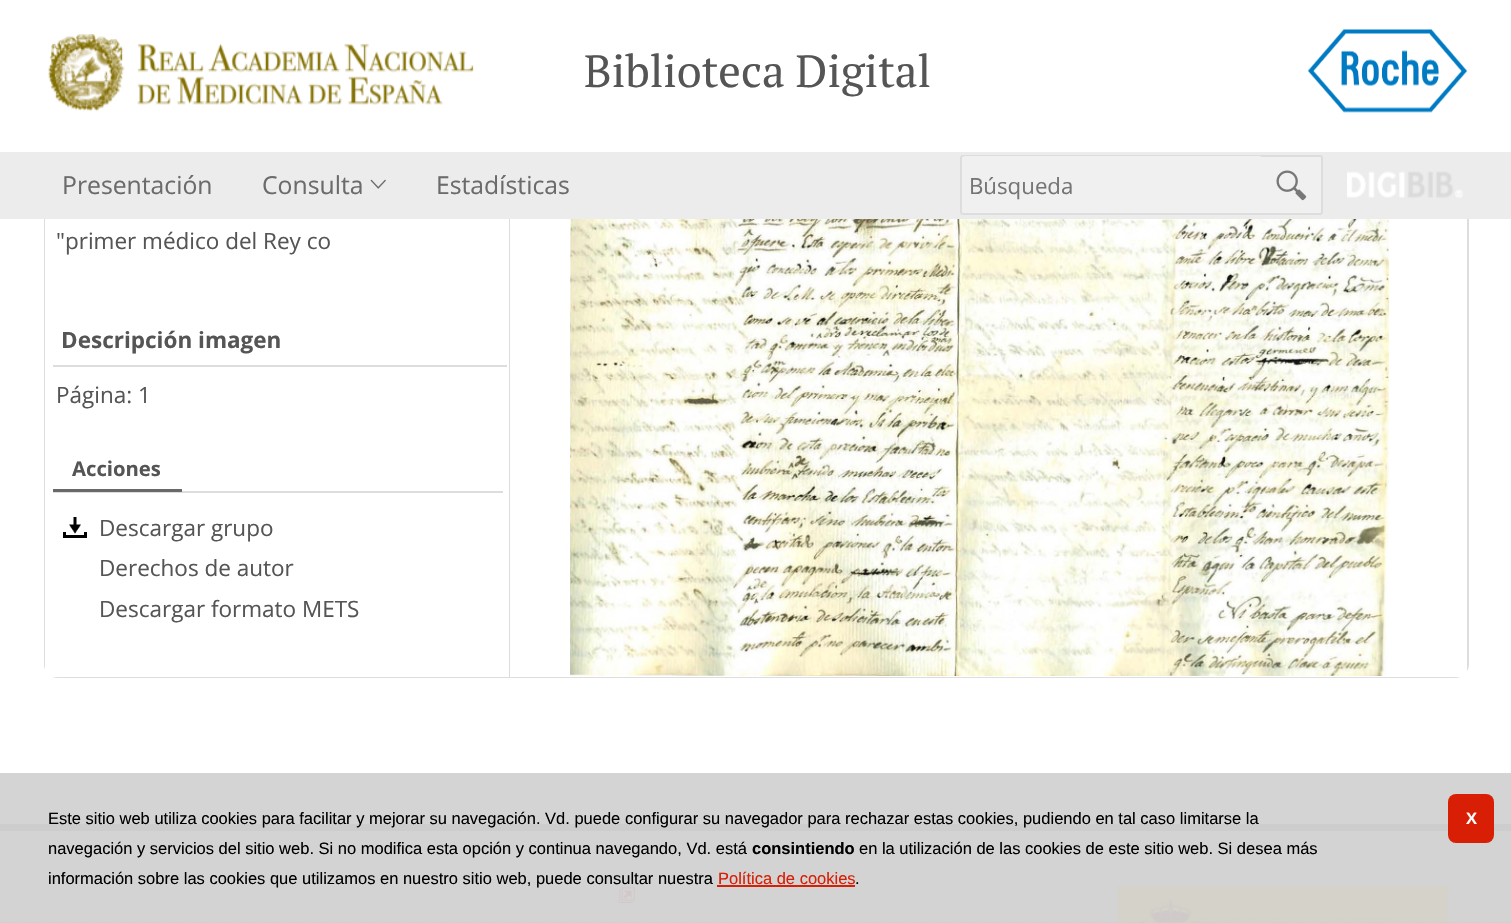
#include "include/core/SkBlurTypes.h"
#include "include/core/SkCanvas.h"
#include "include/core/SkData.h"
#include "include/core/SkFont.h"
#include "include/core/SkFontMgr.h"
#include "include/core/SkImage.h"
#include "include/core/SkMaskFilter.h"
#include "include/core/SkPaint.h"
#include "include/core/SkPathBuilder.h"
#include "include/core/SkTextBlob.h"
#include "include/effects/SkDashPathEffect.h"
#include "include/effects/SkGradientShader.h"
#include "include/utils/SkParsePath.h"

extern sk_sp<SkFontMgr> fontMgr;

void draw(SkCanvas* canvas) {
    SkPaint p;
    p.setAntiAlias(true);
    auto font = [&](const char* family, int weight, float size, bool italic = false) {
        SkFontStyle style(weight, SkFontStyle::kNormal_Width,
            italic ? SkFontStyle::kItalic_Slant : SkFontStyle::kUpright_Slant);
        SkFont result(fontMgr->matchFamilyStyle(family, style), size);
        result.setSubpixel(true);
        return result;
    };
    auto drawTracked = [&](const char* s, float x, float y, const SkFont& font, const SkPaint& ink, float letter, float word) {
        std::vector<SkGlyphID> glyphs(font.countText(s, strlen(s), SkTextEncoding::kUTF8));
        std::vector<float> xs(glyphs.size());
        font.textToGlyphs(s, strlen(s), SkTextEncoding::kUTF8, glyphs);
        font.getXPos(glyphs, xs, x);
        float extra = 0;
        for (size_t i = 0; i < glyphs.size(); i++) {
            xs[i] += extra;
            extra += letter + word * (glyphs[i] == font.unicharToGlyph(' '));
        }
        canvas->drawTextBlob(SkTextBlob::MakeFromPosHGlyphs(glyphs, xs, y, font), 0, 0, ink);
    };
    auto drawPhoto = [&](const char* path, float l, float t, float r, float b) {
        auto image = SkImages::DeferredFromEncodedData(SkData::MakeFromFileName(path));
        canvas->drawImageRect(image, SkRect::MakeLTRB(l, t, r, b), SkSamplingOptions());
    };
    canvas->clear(0xFFFFFFFF);
    p.setColor(0xFFD4D4D4);
    canvas->drawRect(SkRect::MakeLTRB(0, 773, 1511, 824), p);
    p.setStyle(SkPaint::kStroke_Style);
    p.setStrokeWidth(2);
    p.setColor(0xFFDDDDDD);
    canvas->drawRoundRect(SkRect::MakeLTRB(45, -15, 1468, 677), 13, 13, p);
    p.setStyle(SkPaint::kFill_Style);
    p.setColor(0xFFFFFFFF);
    canvas->drawRect(SkRect::MakeLTRB(44, 0, 1469, 152), p);
    drawPhoto("media/1.png", 48, 34, 474, 112);
    auto font1 = font("PT Serif", 400, 45);
    p.setColor(0xFF555555);
    canvas->drawString("Biblioteca Digital", 584, 87, font1, p);
    drawPhoto("media/2.png", 1308, 29, 1467, 113);
    p.setColor(0xFFECECEC);
    canvas->drawRect(SkRect::MakeLTRB(0, 152, 1511, 219), p);
    auto font2 = font("Open Sans", 400, 24.75f);
    p.setColor(0xFF6B6B6B);
    canvas->drawString("Presentación", 62, 194, font2, p);
    canvas->drawString("Consulta", 262, 194, font2, p);
    drawPhoto("media/3.png", 370, 179, 386, 189);
    canvas->drawString("Estadísticas", 436, 194, font2, p);
    p.setColor(0xFFF0F0F0);
    canvas->drawRoundRect(SkRect::MakeLTRB(961, 156, 1322, 214), 2, 2, p);
    p.setStyle(SkPaint::kStroke_Style);
    p.setColor(0xFFDDDDDD);
    canvas->drawRoundRect(SkRect::MakeLTRB(961, 156, 1322, 214), 2, 2, p);
    p.setStyle(SkPaint::kFill_Style);
    p.setColor(0xFFF0F0F0);
    canvas->drawRoundRect(SkRect::MakeLTRB(962, 156, 1262, 213), 3, 3, p);
    auto font3 = font("Open Sans", 400, 22.25f);
    p.setColor(0xFF757575);
    canvas->drawString("Búsqueda", 969, 194, font3, p);
    drawPhoto("media/4.png", 1276, 170, 1307, 201);
    drawPhoto("media/5.png", 1347, 171, 1463, 198);
    p.setColor(0xFFFFFFFF);
    canvas->drawRect(SkRect::MakeLTRB(45, 219, 509, 677), p);
    p.setColor(0xFFDDDDDD);
    canvas->drawRect(SkRect::MakeLTRB(509, 219, 510, 677), p);
    auto font4 = font("Open Sans", 400, 22.5f);
    p.setColor(0xFF555555);
    canvas->drawString("\"primer médico del Rey co", 56, 249, font4, p);
    p.setColor(0xFFDDDDDD);
    canvas->drawRect(SkRect::MakeLTRB(53, 365, 507, 367), p);
    auto font5 = font("Open Sans", 700, 22.5f);
    p.setColor(0xFF555555);
    canvas->drawString("Descripción imagen", 61, 348, font5, p);
    canvas->drawString("Página: 1", 56, 403, font4, p);
    p.setColor(0xFFDDDDDD);
    canvas->drawRect(SkRect::MakeLTRB(53, 491, 503, 493), p);
    p.setColor(0xFF696969);
    canvas->drawRect(SkRect::MakeLTRB(53, 489, 182, 492), p);
    auto font6 = font("Open Sans", 700, 20.25f);
    p.setColor(0xFF555555);
    canvas->drawString("Acciones", 72, 476, font6, p);
    drawPhoto("media/6.png", 63, 517, 87, 538);
    {
        const struct { const char* s; float x, y; } items[] = {
            {"Descargar grupo", 99, 536},
            {"Derechos de autor", 99, 576},
            {"Descargar formato METS", 99, 617},
        };
        for (auto [s, x, y] : items) {
            canvas->drawString(s, x, y, font4, p);
        }
    }
    p.setColor(0xFFFFFFFF);
    canvas->drawRect(SkRect::MakeLTRB(510, 676, 512, 677), p);
    canvas->drawRect(SkRect::MakeLTRB(512, 665, 1467, 677), p);
    drawPhoto("media/7.png", 570, 219, 1389, 676);
    p.setColor(0xFFD3D3D3);
    canvas->drawRect(SkRect::MakeLTRB(0, 831, 1511, 923), p);
    p.setColor(0xFFCDCDCD);
    canvas->drawRect(SkRect::MakeLTRB(0, 824, 1511, 831), p);
    drawPhoto("media/8.png", 619, 887, 635, 903);
    drawPhoto("media/9.png", 1117, 886, 1448, 923);
    p.setStyle(SkPaint::kStroke_Style);
    p.setStrokeWidth(1.5f);
    p.setColor(0xFFCCCCCC);
    p.setPathEffect(SkDashPathEffect::Make({{1.5f, 1.5f}}, 0));
    canvas->drawPath(SkPathBuilder().moveTo(0, 923).lineTo(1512, 923).detach(), p);
    p.setPathEffect(nullptr);
    auto font7 = font("Liberation Sans", 400, 16.5f);
    p.setStyle(SkPaint::kFill_Style);
    p.setColor(0xFF000000);
    canvas->drawString("Este sitio web utiliza cookies para facilitar y mejorar su navegación. Vd. puede configurar su navegador para rechazar estas cookies, pudiendo en tal caso limitarse la", 48, 824, font7, p);
    canvas->drawString("navegación y servicios del sitio web. Si no modifica esta opción y continua navegando, Vd. está", 48, 854, font7, p);
    auto font8 = font("Liberation Sans", 700, 16.5f);
    canvas->drawString("consintiendo", 752, 854, font8, p);
    canvas->drawString("en la utilización de las cookies de este sitio web. Si desea más", 859, 854, font7, p);
    canvas->drawString("información sobre las cookies que utilizamos en nuestro sitio web, puede consultar nuestra", 48, 884, font7, p);
    p.setColor(0xFFD81E05);
    canvas->drawString("Política de cookies", 718, 884, font7, p);
    p.setColor(0xFF000000);
    canvas->drawString(".", 855, 884, font7, p);
    p.setColor(0xFFD81E05);
    canvas->drawRect(SkRect::MakeLTRB(717, 885, 855, 887), p);
    canvas->drawRoundRect(SkRect::MakeLTRB(1448, 794, 1494, 843), 8, 8, p);
    p.setColor(0xFFFFFFFF);
    drawTracked("X", 1466, 824, font8, p, -1, 0);
}
